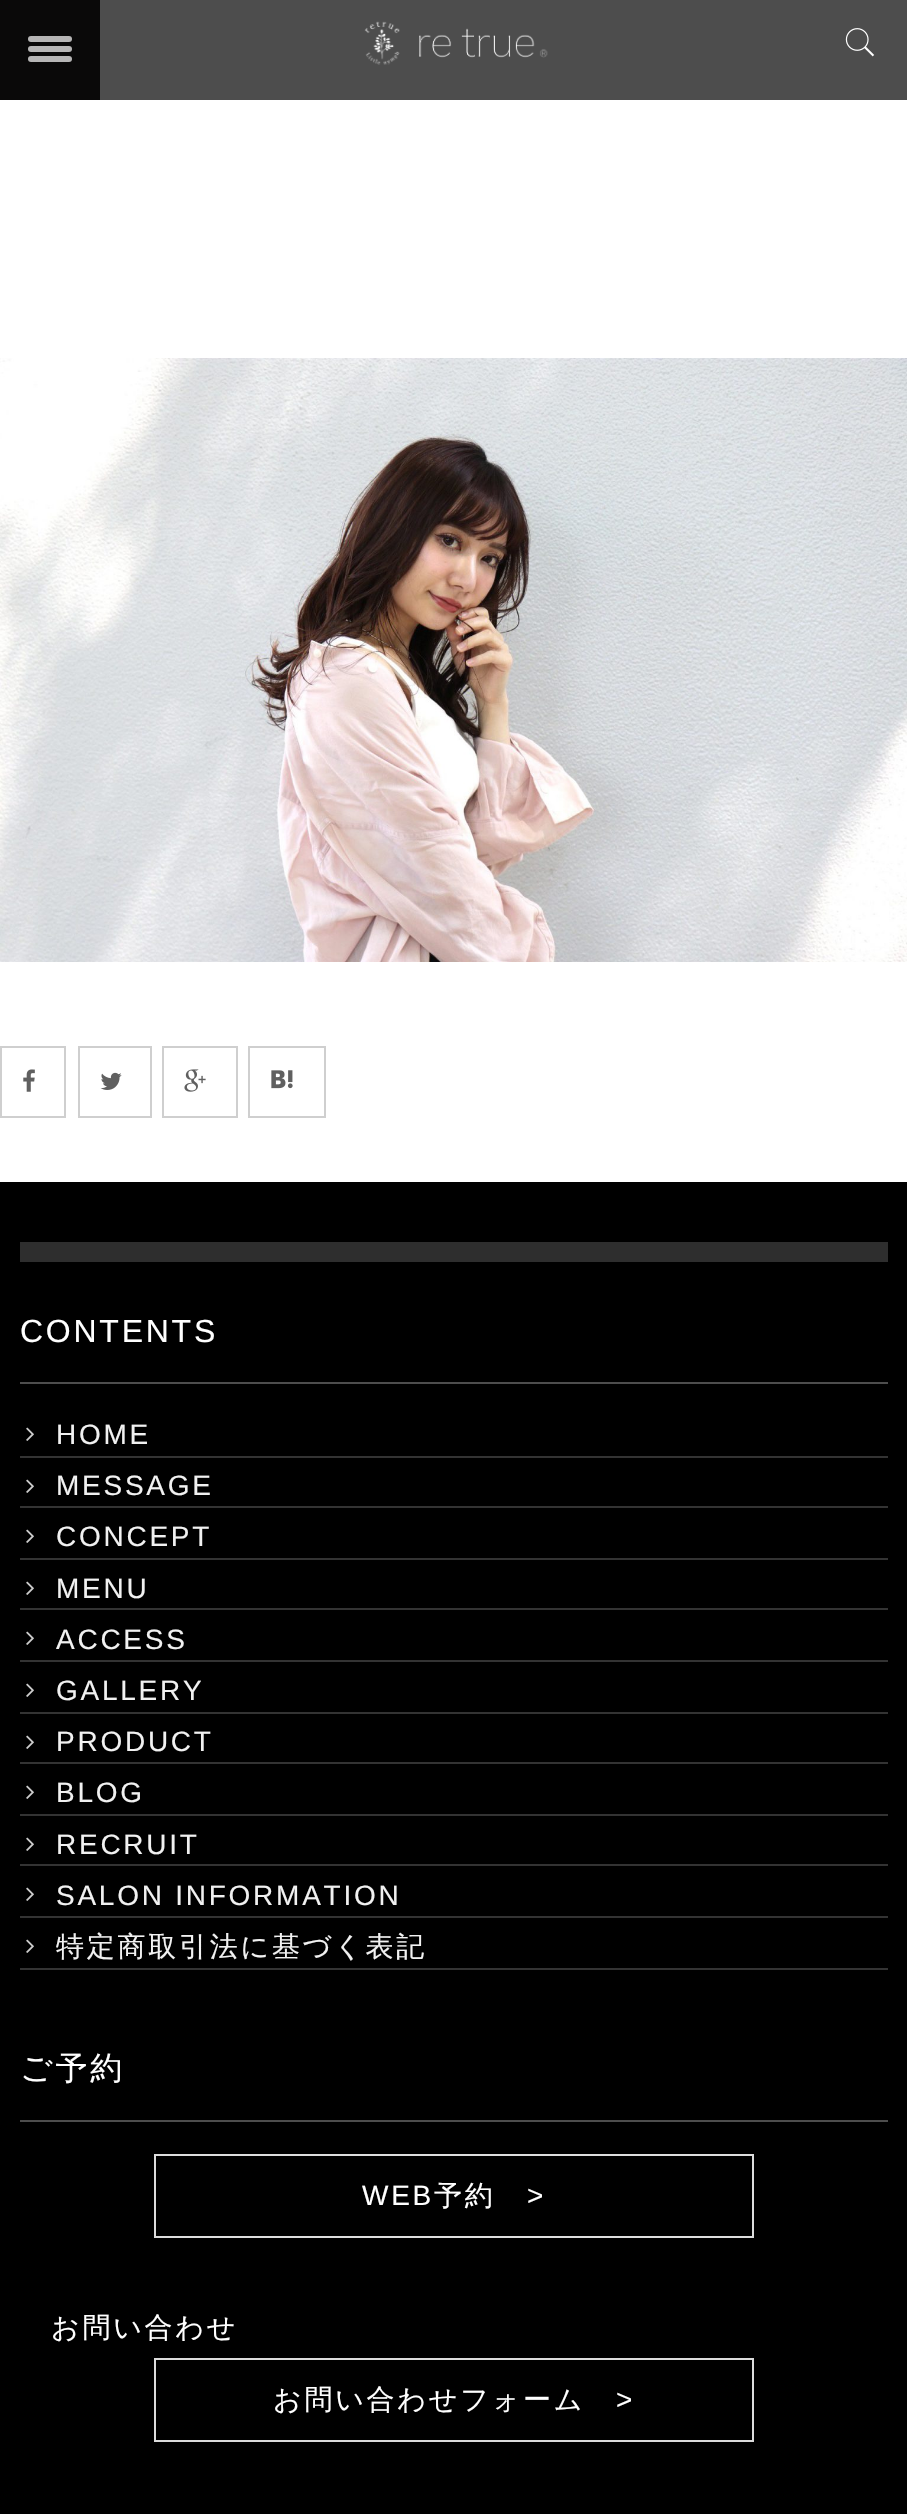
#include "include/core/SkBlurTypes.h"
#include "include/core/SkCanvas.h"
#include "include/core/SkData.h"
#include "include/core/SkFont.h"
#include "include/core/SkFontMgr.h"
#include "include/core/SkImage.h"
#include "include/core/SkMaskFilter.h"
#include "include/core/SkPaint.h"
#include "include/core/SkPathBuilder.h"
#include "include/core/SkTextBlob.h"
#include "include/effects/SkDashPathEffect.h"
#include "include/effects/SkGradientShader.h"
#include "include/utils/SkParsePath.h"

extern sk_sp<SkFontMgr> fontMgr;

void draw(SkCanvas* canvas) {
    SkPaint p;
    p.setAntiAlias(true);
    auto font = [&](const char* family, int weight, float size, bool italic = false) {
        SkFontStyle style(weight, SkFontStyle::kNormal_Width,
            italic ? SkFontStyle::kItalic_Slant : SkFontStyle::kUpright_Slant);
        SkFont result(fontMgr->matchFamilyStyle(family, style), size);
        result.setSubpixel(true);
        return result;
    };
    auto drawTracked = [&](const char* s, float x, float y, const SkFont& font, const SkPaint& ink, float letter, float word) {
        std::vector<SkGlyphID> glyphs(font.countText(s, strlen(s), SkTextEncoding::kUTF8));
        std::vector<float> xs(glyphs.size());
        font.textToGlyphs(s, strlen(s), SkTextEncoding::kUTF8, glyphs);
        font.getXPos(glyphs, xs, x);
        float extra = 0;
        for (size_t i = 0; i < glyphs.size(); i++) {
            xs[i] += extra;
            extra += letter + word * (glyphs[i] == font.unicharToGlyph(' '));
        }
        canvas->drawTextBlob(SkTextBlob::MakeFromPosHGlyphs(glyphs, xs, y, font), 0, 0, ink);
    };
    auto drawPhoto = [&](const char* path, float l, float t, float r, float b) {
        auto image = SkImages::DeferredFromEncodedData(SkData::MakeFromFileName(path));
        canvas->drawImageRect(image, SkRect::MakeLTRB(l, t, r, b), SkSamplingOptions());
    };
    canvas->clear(0xFFFFFFFF);
    p.setColor(0xFF4D4D4D);
    canvas->drawRect(SkRect::MakeLTRB(100, 0, 907, 100), p);
    drawPhoto("media/1.png", 364, 21, 548, 65);
    drawPhoto("media/2.png", 845, 28, 875, 57);
    drawPhoto("media/3.png", 0, 358, 907, 962);
    p.setStyle(SkPaint::kStroke_Style);
    p.setStrokeWidth(2);
    p.setColor(0xFFCFCFCF);
    canvas->drawRect(SkRect::MakeLTRB(1, 1047, 65, 1117), p);
    drawPhoto("media/4.png", 23, 1069, 35, 1092);
    canvas->drawRect(SkRect::MakeLTRB(79, 1047, 151, 1117), p);
    drawPhoto("media/5.png", 100, 1072, 122, 1090);
    canvas->drawRect(SkRect::MakeLTRB(163, 1047, 237, 1117), p);
    drawPhoto("media/6.png", 184, 1069, 206, 1092);
    canvas->drawRect(SkRect::MakeLTRB(249, 1047, 325, 1117), p);
    drawPhoto("media/7.png", 271, 1070, 293, 1089);
    p.setStyle(SkPaint::kFill_Style);
    p.setColor(0xFF0A0909);
    canvas->drawRect(SkRect::MakeLTRB(0, 0, 100, 100), p);
    p.setColor(0xFFB6B5B5);
    canvas->drawRoundRect(SkRect::MakeLTRB(28, 36, 72, 42), 3, 3, p);
    canvas->drawRoundRect(SkRect::MakeLTRB(28, 46, 72, 52), 3, 3, p);
    canvas->drawRoundRect(SkRect::MakeLTRB(28, 56, 72, 62), 3, 3, p);
    {
        const struct { float l, t, r, b; SkColor color; } items[] = {
            {0, 1182, 907, 2514, 0xFF000000},
            {20, 1242, 888, 1262, 0xFF2E2E2E},
            {20, 1382, 888, 1384, 0xFF4D4D4D},
        };
        for (auto [l, t, r, b, color] : items) {
            p.setColor(color);
            canvas->drawRect(SkRect::MakeLTRB(l, t, r, b), p);
        }
    }
    auto font1 = font("Liberation Sans", 400, 32);
    p.setColor(0xFFFFFFFF);
    drawTracked("CONTENTS", 20, 1342, font1, p, 2.75f, 0);
    p.setColor(0xFF333333);
    canvas->drawRect(SkRect::MakeLTRB(20, 1456, 888, 1458), p);
    drawPhoto("media/8.png", 26, 1427, 34, 1441);
    auto font2 = font("Liberation Sans", 400, 28);
    p.setColor(0xFFF1F1F1);
    drawTracked("HOME", 56, 1444, font2, p, 2.75f, 0);
    p.setColor(0xFF333333);
    canvas->drawRect(SkRect::MakeLTRB(20, 1506, 888, 1508), p);
    drawPhoto("media/8.png", 26, 1479, 34, 1493);
    p.setColor(0xFFF1F1F1);
    drawTracked("MESSAGE", 56, 1495, font2, p, 2.75f, 0);
    p.setColor(0xFF333333);
    canvas->drawRect(SkRect::MakeLTRB(20, 1558, 888, 1560), p);
    drawPhoto("media/8.png", 26, 1529, 34, 1543);
    p.setColor(0xFFF1F1F1);
    drawTracked("CONCEPT", 56, 1546, font2, p, 2.75f, 0);
    p.setColor(0xFF333333);
    canvas->drawRect(SkRect::MakeLTRB(20, 1608, 888, 1610), p);
    drawPhoto("media/8.png", 26, 1581, 34, 1595);
    p.setColor(0xFFF1F1F1);
    drawTracked("MENU", 56, 1598, font2, p, 2.75f, 0);
    p.setColor(0xFF333333);
    canvas->drawRect(SkRect::MakeLTRB(20, 1660, 888, 1662), p);
    drawPhoto("media/8.png", 26, 1631, 34, 1645);
    p.setColor(0xFFF1F1F1);
    drawTracked("ACCESS", 56, 1649, font2, p, 2.75f, 0);
    p.setColor(0xFF333333);
    canvas->drawRect(SkRect::MakeLTRB(20, 1712, 888, 1714), p);
    drawPhoto("media/8.png", 26, 1683, 34, 1697);
    p.setColor(0xFFF1F1F1);
    drawTracked("GALLERY", 56, 1700, font2, p, 2.75f, 0);
    p.setColor(0xFF333333);
    canvas->drawRect(SkRect::MakeLTRB(20, 1762, 888, 1764), p);
    drawPhoto("media/8.png", 26, 1735, 34, 1749);
    p.setColor(0xFFF1F1F1);
    drawTracked("PRODUCT", 56, 1751, font2, p, 2.75f, 0);
    p.setColor(0xFF333333);
    canvas->drawRect(SkRect::MakeLTRB(20, 1814, 888, 1816), p);
    drawPhoto("media/8.png", 26, 1785, 34, 1799);
    p.setColor(0xFFF1F1F1);
    drawTracked("BLOG", 56, 1802, font2, p, 2.75f, 0);
    p.setColor(0xFF333333);
    canvas->drawRect(SkRect::MakeLTRB(20, 1864, 888, 1866), p);
    drawPhoto("media/8.png", 26, 1837, 34, 1851);
    p.setColor(0xFFF1F1F1);
    drawTracked("RECRUIT", 56, 1854, font2, p, 2.75f, 0);
    p.setColor(0xFF333333);
    canvas->drawRect(SkRect::MakeLTRB(20, 1916, 888, 1918), p);
    drawPhoto("media/8.png", 26, 1887, 34, 1901);
    p.setColor(0xFFF1F1F1);
    drawTracked("SALON INFORMATION", 56, 1905, font2, p, 2.75f, 0);
    p.setColor(0xFF333333);
    canvas->drawRect(SkRect::MakeLTRB(20, 1968, 888, 1970), p);
    drawPhoto("media/8.png", 26, 1939, 34, 1953);
    auto font3 = font("WenQuanYi Zen Hei", 500, 28);
    p.setColor(0xFFF1F1F1);
    drawTracked("特定商取引法に基づく表記", 56, 1956, font3, p, 2.75f, 0);
    p.setColor(0xFF4D4D4D);
    canvas->drawRect(SkRect::MakeLTRB(20, 2120, 888, 2122), p);
    auto font4 = font("WenQuanYi Zen Hei", 500, 32);
    p.setColor(0xFFFFFFFF);
    drawTracked("ご予約", 20, 2079, font4, p, 2.75f, 0);
    p.setStyle(SkPaint::kStroke_Style);
    p.setColor(0xFFDCDCDC);
    canvas->drawRect(SkRect::MakeLTRB(155, 2155, 753, 2237), p);
    p.setStyle(SkPaint::kFill_Style);
    p.setColor(0xFFFFFFFF);
    drawTracked("WEB", 362, 2205, font2, p, 2.75f, 0);
    drawTracked("予約", 434, 2205, font3, p, 2.75f, 0);
    drawTracked(">", 527, 2205, font2, p, 2.75f, 0);
    drawTracked("お問い合わせ", 51, 2337, font3, p, 2.75f, 0);
    p.setStyle(SkPaint::kStroke_Style);
    p.setColor(0xFFDCDCDC);
    canvas->drawRect(SkRect::MakeLTRB(155, 2359, 753, 2441), p);
    p.setStyle(SkPaint::kFill_Style);
    p.setColor(0xFFFFFFFF);
    drawTracked("お問い合わせフォーム", 273, 2409, font3, p, 2.75f, 0);
    drawTracked(">", 616, 2409, font2, p, 2.75f, 0);
}
